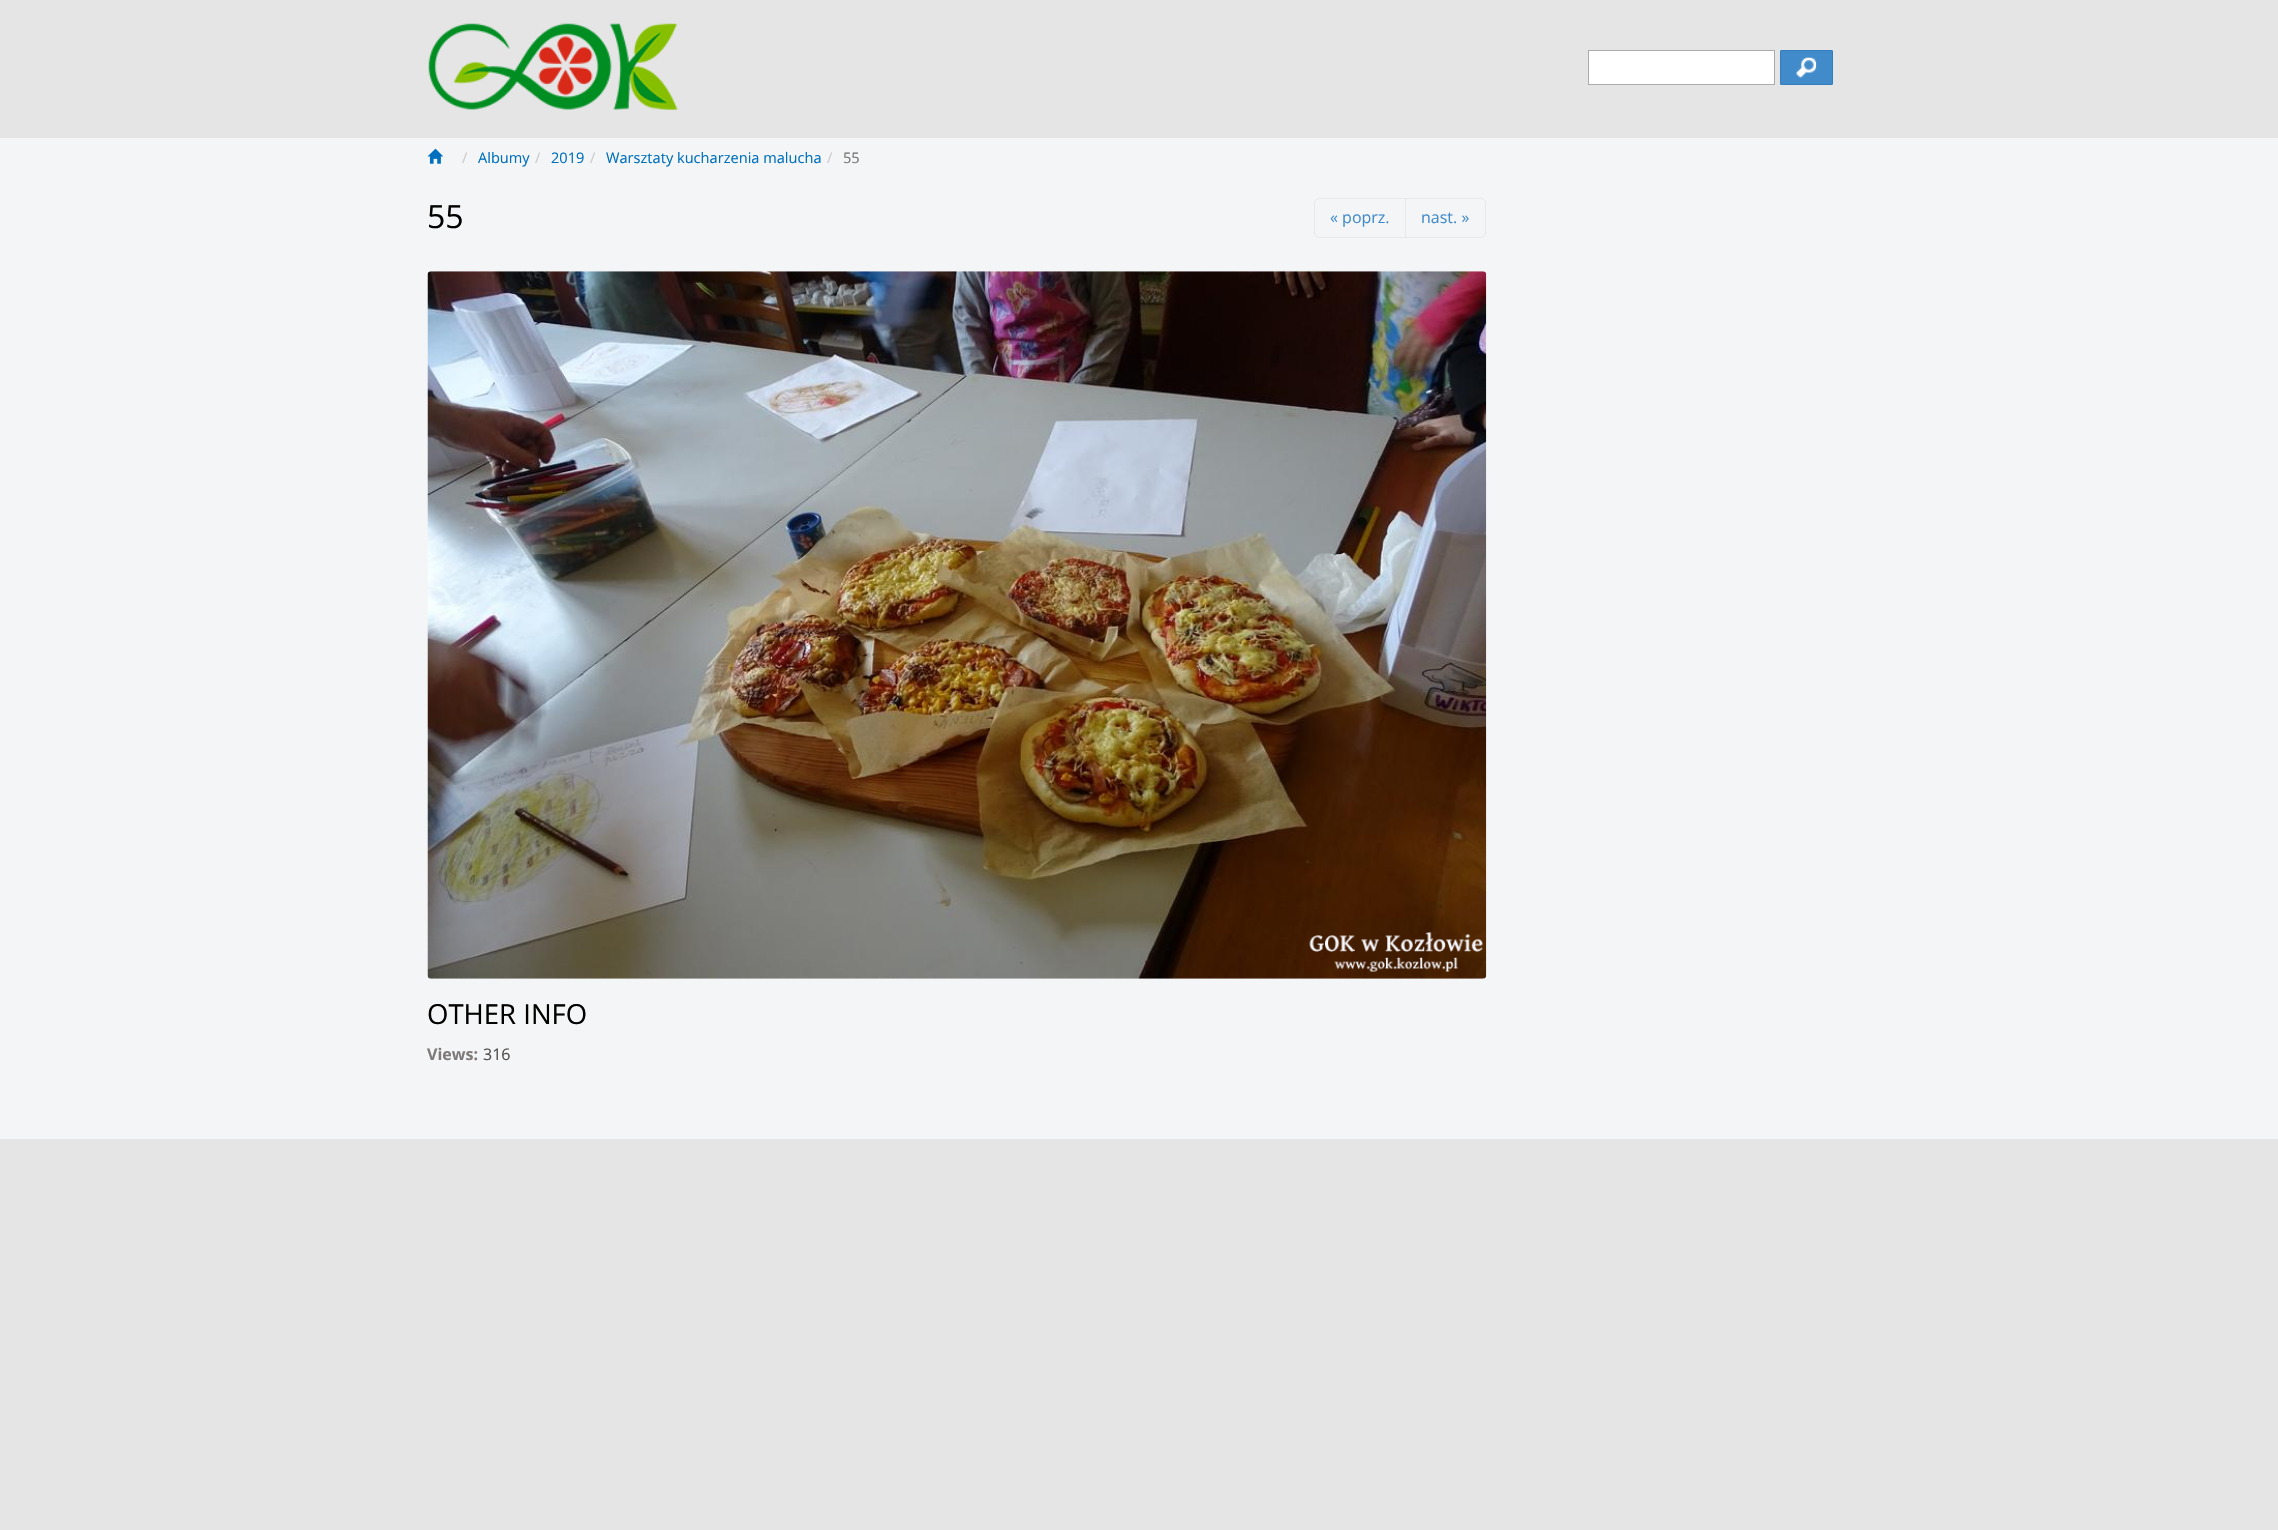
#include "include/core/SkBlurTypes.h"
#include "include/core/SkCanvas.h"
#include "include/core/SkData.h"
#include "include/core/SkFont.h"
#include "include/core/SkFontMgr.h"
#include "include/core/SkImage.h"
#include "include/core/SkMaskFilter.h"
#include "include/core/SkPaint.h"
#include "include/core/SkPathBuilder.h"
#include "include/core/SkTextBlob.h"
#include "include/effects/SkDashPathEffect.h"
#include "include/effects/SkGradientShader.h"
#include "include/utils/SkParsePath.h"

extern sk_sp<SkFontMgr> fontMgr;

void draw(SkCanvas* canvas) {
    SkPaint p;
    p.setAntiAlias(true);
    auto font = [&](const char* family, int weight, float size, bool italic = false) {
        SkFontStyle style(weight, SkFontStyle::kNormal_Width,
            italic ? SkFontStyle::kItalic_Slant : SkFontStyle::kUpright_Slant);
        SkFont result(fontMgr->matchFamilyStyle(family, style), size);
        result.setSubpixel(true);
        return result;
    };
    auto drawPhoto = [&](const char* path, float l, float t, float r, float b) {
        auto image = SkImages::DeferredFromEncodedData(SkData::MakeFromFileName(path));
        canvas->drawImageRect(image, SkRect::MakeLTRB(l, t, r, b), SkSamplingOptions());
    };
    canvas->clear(0xFFE5E5E5);
    drawPhoto("media/1.png", 428, 23, 678, 110);
    p.setColor(0xFFFFFFFF);
    canvas->drawRect(SkRect::MakeLTRB(1588.5f, 50.5f, 1774.5f, 84.5f), p);
    p.setStyle(SkPaint::kStroke_Style);
    p.setStrokeWidth(1);
    p.setColor(0xFFACACAC);
    canvas->drawRect(SkRect::MakeLTRB(1588.5f, 50.5f, 1774.5f, 84.5f), p);
    p.setStyle(SkPaint::kFill_Style);
    p.setColor(0xFF428BCA);
    canvas->drawRoundRect(SkRect::MakeLTRB(1780.5f, 50.5f, 1832.5f, 84.5f), 0.5f, 0.5f, p);
    p.setStyle(SkPaint::kStroke_Style);
    p.setColor(0xFF357EBD);
    canvas->drawRoundRect(SkRect::MakeLTRB(1780.5f, 50.5f, 1832.5f, 84.5f), 0.5f, 0.5f, p);
    drawPhoto("media/2.png", 1796, 57, 1817, 78);
    p.setStyle(SkPaint::kFill_Style);
    p.setColor(0xFFF4F5F6);
    canvas->drawRect(SkRect::MakeLTRB(0, 138, 2278, 1139), p);
    drawPhoto("media/3.png", 427, 148, 444, 164);
    auto font1 = font("Open Sans", 400, 14.6f);
    p.setColor(0xFFCCCCCC);
    canvas->drawString("/", 462, 163, font1, p);
    p.setColor(0xFF0070BE);
    canvas->drawString("Albumy", 478, 163, font1, p);
    p.setColor(0xFFCCCCCC);
    canvas->drawString("/", 535, 163, font1, p);
    p.setColor(0xFF0070BE);
    canvas->drawString("2019", 551, 163, font1, p);
    p.setColor(0xFFCCCCCC);
    canvas->drawString("/", 590, 163, font1, p);
    p.setColor(0xFF0070BE);
    canvas->drawString("Warsztaty kucharzenia malucha", 606, 163, font1, p);
    p.setColor(0xFFCCCCCC);
    canvas->drawString("/", 827, 163, font1, p);
    p.setColor(0xFF777777);
    canvas->drawString("55", 843, 163, font1, p);
    auto font2 = font("Open Sans", 400, 32);
    p.setColor(0xFF000000);
    canvas->drawString("55", 427, 228, font2, p);
    p.setStyle(SkPaint::kStroke_Style);
    p.setColor(0xFFE6E9EA);
    canvas->drawPath(SkPathBuilder().moveTo(1319, 198.5f).lineTo(1405.5f, 198.5f).lineTo(1405.5f, 237.5f).lineTo(1319, 237.5f).cubicTo(1316.5f, 237.5f, 1314.5f, 235.5f, 1314.5f, 233).lineTo(1314.5f, 203).cubicTo(1314.5f, 200.5f, 1316.5f, 198.5f, 1319, 198.5f).close().detach(), p);
    auto font3 = font("Open Sans", 400, 16);
    p.setStyle(SkPaint::kFill_Style);
    p.setColor(0xFF428BCA);
    canvas->drawString("« poprz.", 1330, 223, font3, p);
    p.setColor(0xFFF4F5F6);
    canvas->drawPath(SkPathBuilder().moveTo(1405.5f, 198.5f).lineTo(1481, 198.5f).cubicTo(1483.5f, 198.5f, 1485.5f, 200.5f, 1485.5f, 203).lineTo(1485.5f, 233).cubicTo(1485.5f, 235.5f, 1483.5f, 237.5f, 1481, 237.5f).lineTo(1405.5f, 237.5f).close().detach(), p);
    p.setStyle(SkPaint::kStroke_Style);
    p.setColor(0xFFE6E9EA);
    canvas->drawPath(SkPathBuilder().moveTo(1405.5f, 198.5f).lineTo(1481, 198.5f).cubicTo(1483.5f, 198.5f, 1485.5f, 200.5f, 1485.5f, 203).lineTo(1485.5f, 233).cubicTo(1485.5f, 235.5f, 1483.5f, 237.5f, 1481, 237.5f).lineTo(1405.5f, 237.5f).close().detach(), p);
    p.setStyle(SkPaint::kFill_Style);
    p.setColor(0xFF428BCA);
    canvas->drawString("nast. »", 1421, 223, font3, p);
    drawPhoto("media/4.png", 427, 271, 1487, 979);
    auto font4 = font("Open Sans", 400, 27.5f);
    p.setColor(0xFF000000);
    canvas->drawString("OTHER INFO", 427, 1024, font4, p);
    auto font5 = font("Open Sans", 700, 16);
    p.setColor(0xFF7F7A7A);
    canvas->drawString("Views:", 427, 1060, font5, p);
    p.setColor(0xFF504D4D);
    canvas->drawString("316", 483, 1060, font3, p);
}
